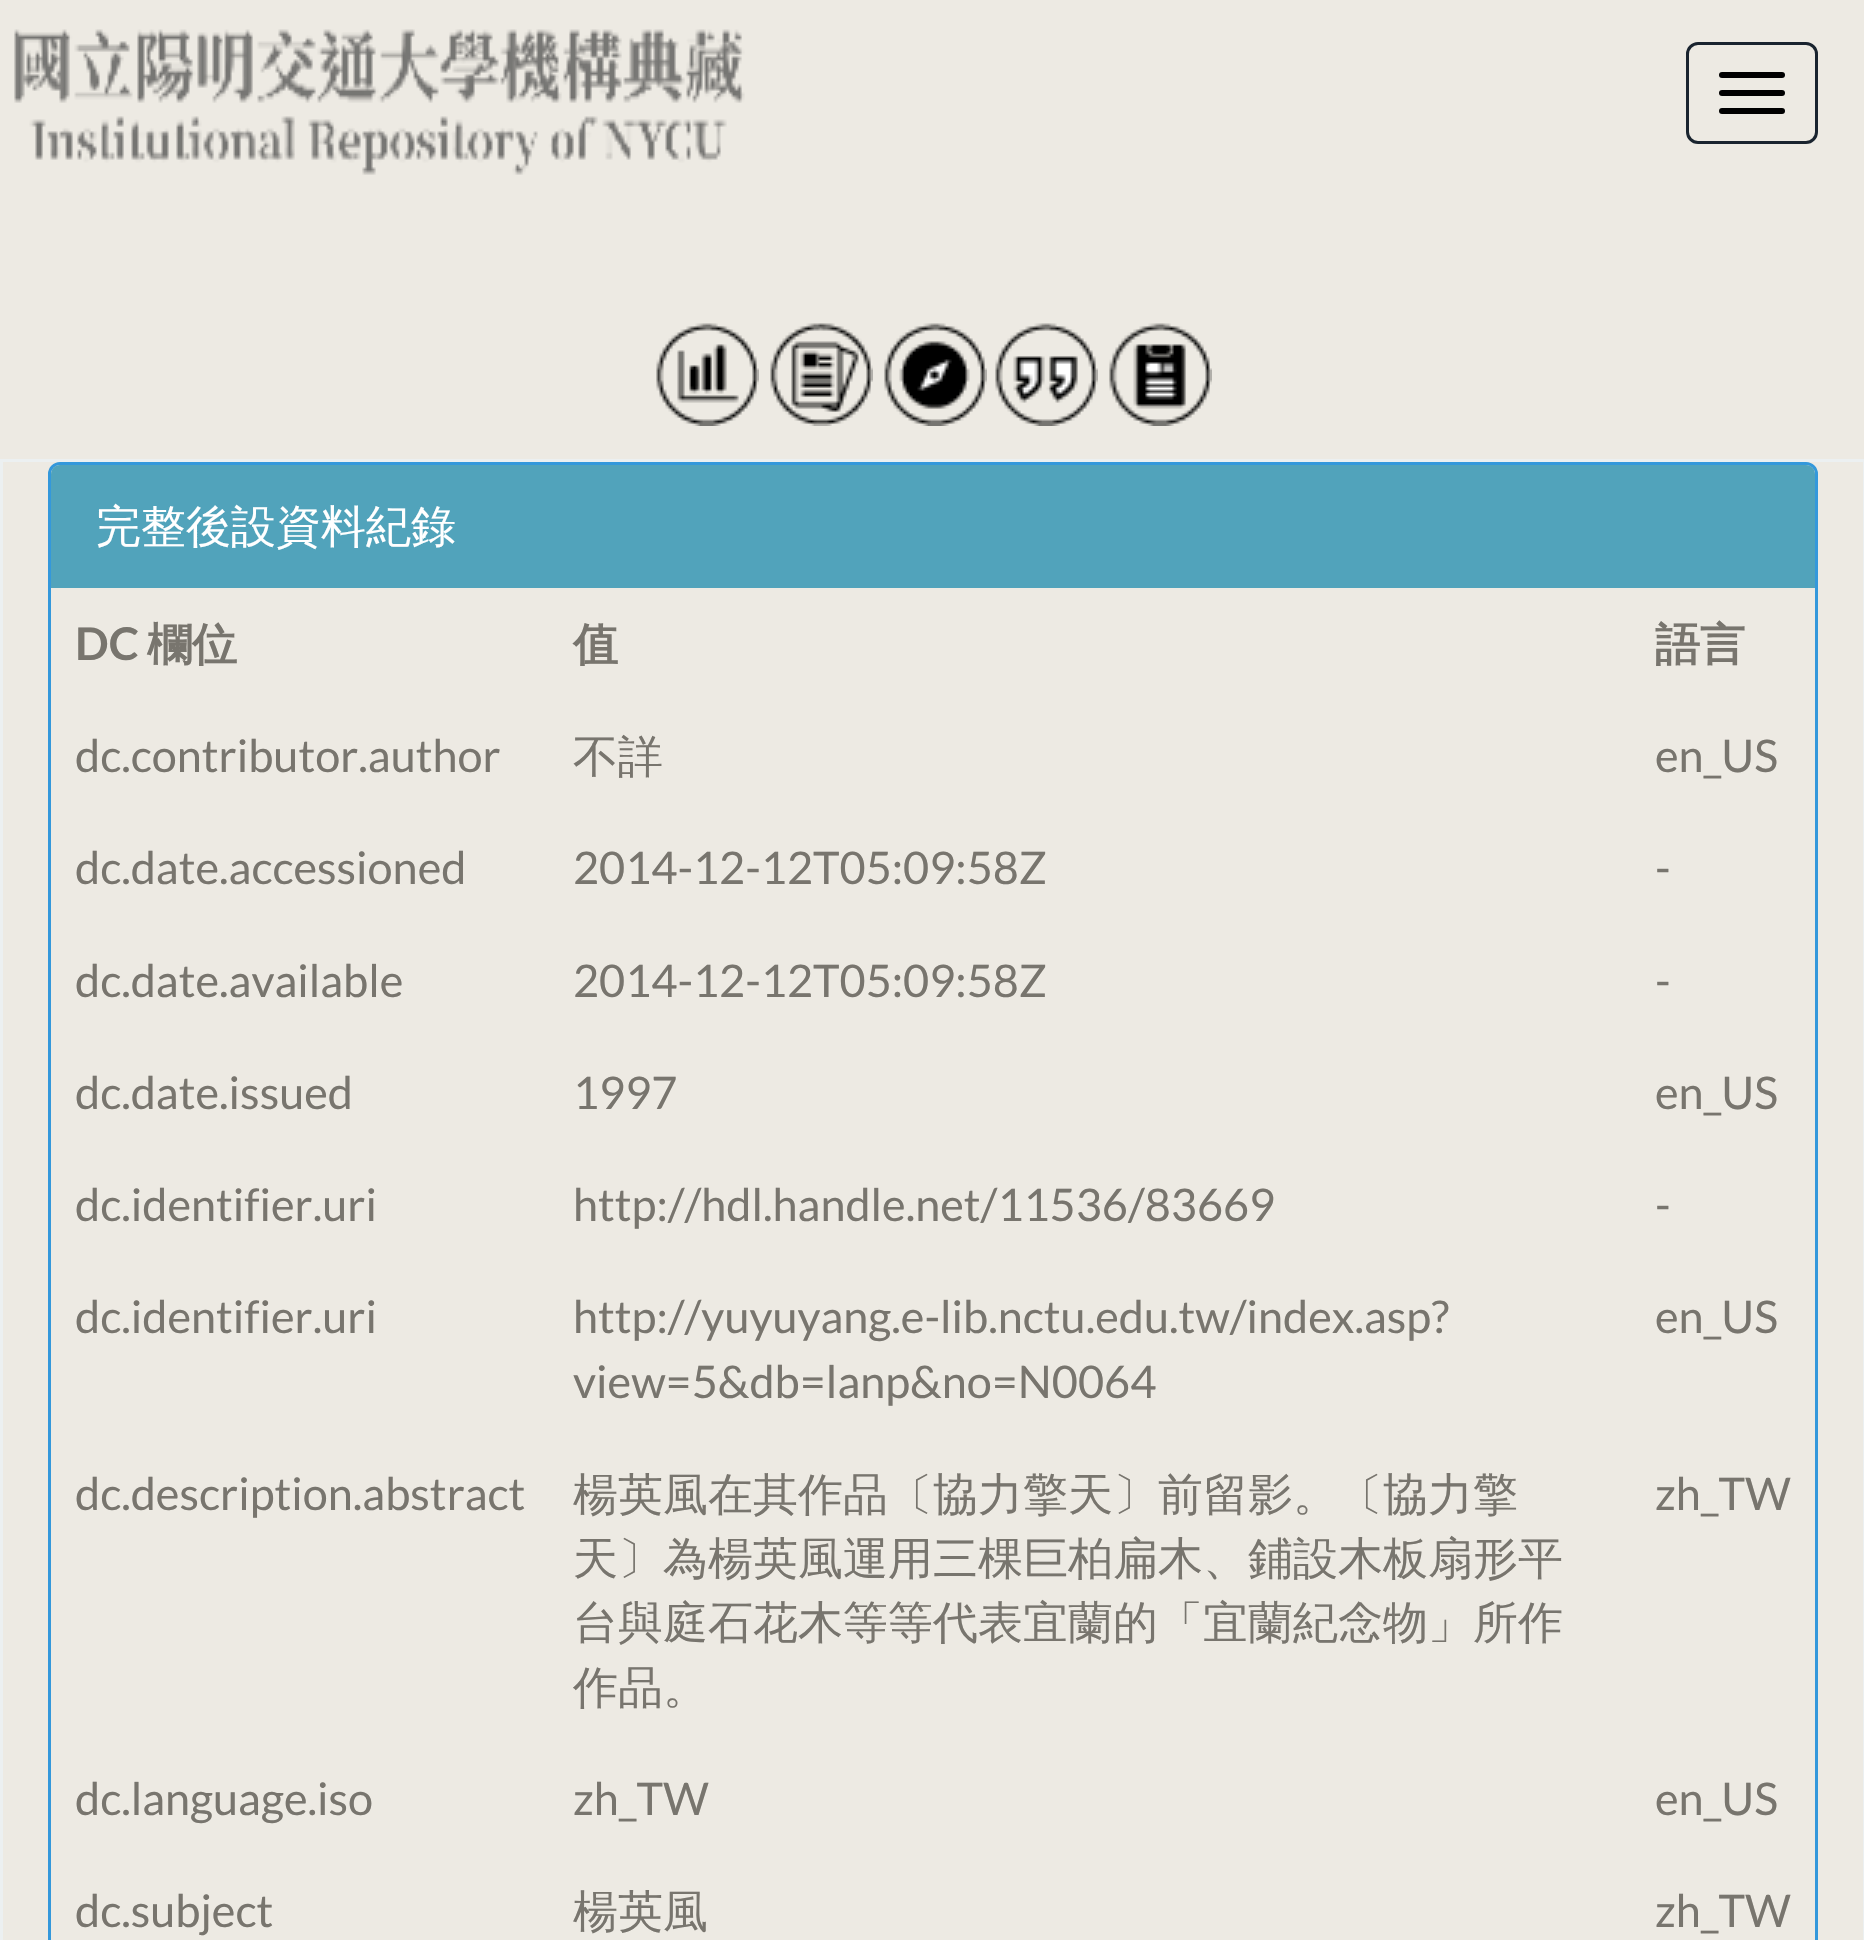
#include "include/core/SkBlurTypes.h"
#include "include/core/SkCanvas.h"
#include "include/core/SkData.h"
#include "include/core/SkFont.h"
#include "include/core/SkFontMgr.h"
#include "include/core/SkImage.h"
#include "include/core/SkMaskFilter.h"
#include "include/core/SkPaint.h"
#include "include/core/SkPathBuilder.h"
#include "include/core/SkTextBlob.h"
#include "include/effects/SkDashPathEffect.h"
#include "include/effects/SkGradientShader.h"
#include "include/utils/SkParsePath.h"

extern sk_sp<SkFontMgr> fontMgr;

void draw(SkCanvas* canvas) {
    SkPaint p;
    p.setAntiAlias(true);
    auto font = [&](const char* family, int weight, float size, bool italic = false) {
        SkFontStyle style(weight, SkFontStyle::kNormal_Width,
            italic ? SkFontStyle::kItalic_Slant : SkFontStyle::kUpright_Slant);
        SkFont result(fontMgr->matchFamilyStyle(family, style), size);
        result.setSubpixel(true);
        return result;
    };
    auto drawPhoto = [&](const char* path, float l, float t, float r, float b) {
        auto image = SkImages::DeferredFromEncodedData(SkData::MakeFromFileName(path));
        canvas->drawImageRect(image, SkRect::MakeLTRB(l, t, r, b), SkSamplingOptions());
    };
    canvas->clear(0xFFEDEAE3);
    drawPhoto("media/1.png", 14, 29, 745, 175);
    p.setStyle(SkPaint::kStroke_Style);
    p.setStrokeWidth(3);
    p.setColor(0xFF1A242F);
    canvas->drawRoundRect(SkRect::MakeLTRB(1687.5f, 43.5f, 1816.5f, 142.5f), 10.5f, 10.5f, p);
    p.setStyle(SkPaint::kFill_Style);
    p.setColor(0xFF000000);
    canvas->drawRoundRect(SkRect::MakeLTRB(1719, 72, 1785, 78), 3, 3, p);
    canvas->drawRoundRect(SkRect::MakeLTRB(1719, 90, 1785, 96), 3, 3, p);
    canvas->drawRoundRect(SkRect::MakeLTRB(1719, 108, 1785, 114), 3, 3, p);
    drawPhoto("media/2.png", 656, 323, 759, 426);
    drawPhoto("media/3.png", 770, 323, 873, 426);
    drawPhoto("media/4.png", 884, 323, 987, 426);
    drawPhoto("media/5.png", 995, 323, 1098, 426);
    drawPhoto("media/6.png", 1109, 323, 1212, 426);
    p.setStyle(SkPaint::kStroke_Style);
    p.setColor(0xFFECF0F1);
    canvas->drawRect(SkRect::MakeLTRB(1.5f, 460.5f, 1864.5f, 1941.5f), p);
    p.setColor(0xFF3498DB);
    canvas->drawRoundRect(SkRect::MakeLTRB(49.5f, 463.5f, 1816.5f, 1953.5f), 10.5f, 10.5f, p);
    p.setStyle(SkPaint::kFill_Style);
    p.setColor(0xFF51A3BB);
    canvas->drawPath(SkPathBuilder().moveTo(60, 465).lineTo(1806, 465).cubicTo(1811, 465, 1815, 469, 1815, 474).lineTo(1815, 588).lineTo(51, 588).lineTo(51, 474).cubicTo(51, 469, 55, 465, 60, 465).close().detach(), p);
    auto font1 = font("WenQuanYi Zen Hei", 500, 45);
    p.setColor(0xFFFFFFFF);
    canvas->drawString("完整後設資料紀錄", 96, 542, font1, p);
    auto font2 = font("Lato", 700, 45);
    p.setColor(0xFF78756E);
    canvas->drawString("DC", 75, 660, font2, p);
    auto font3 = font("WenQuanYi Zen Hei", 700, 45);
    {
        const struct { const char* s; float x, y; } items[] = {
            {"欄位", 147, 660},
            {"值", 573, 660},
            {"語言", 1655, 660},
        };
        for (auto [s, x, y] : items) {
            canvas->drawString(s, x, y, font3, p);
        }
    }
    auto font4 = font("Lato", 400, 45);
    canvas->drawString("dc.contributor.author", 75, 772, font4, p);
    canvas->drawString("不詳", 573, 772, font1, p);
    {
        const struct { const char* s; float x, y; } items[] = {
            {"en_US", 1655, 772},
            {"dc.date.accessioned", 75, 884},
            {"2014-12-12T05:09:58Z", 573, 884},
            {"-", 1655, 884},
            {"dc.date.available", 75, 997},
            {"2014-12-12T05:09:58Z", 573, 997},
            {"-", 1655, 997},
            {"dc.date.issued", 75, 1109},
            {"1997", 573, 1109},
            {"en_US", 1655, 1109},
            {"dc.identifier.uri", 75, 1221},
            {"http://hdl.handle.net/11536/83669", 573, 1221},
            {"-", 1655, 1221},
            {"dc.identifier.uri", 75, 1333},
            {"http://yuyuyang.e-lib.nctu.edu.tw/index.asp?", 573, 1333},
            {"view=5&db=lanp&no=N0064", 573, 1398},
            {"en_US", 1655, 1333},
            {"dc.description.abstract", 75, 1510},
        };
        for (auto [s, x, y] : items) {
            canvas->drawString(s, x, y, font4, p);
        }
    }
    {
        const struct { const char* s; float x, y; } items[] = {
            {"楊英風在其作品〔協力擎天〕前留影。〔協力擎", 573, 1510},
            {"天〕為楊英風運用三棵巨柏扁木、鋪設木板扇形平", 573, 1574},
            {"台與庭石花木等等代表宜蘭的「宜蘭紀念物」所作", 573, 1638},
            {"作品。", 573, 1703},
        };
        for (auto [s, x, y] : items) {
            canvas->drawString(s, x, y, font1, p);
        }
    }
    {
        const struct { const char* s; float x, y; } items[] = {
            {"zh_TW", 1655, 1510},
            {"dc.language.iso", 75, 1815},
            {"zh_TW", 573, 1815},
            {"en_US", 1655, 1815},
            {"dc.subject", 75, 1927},
        };
        for (auto [s, x, y] : items) {
            canvas->drawString(s, x, y, font4, p);
        }
    }
    canvas->drawString("楊英風", 573, 1927, font1, p);
    canvas->drawString("zh_TW", 1655, 1927, font4, p);
}
